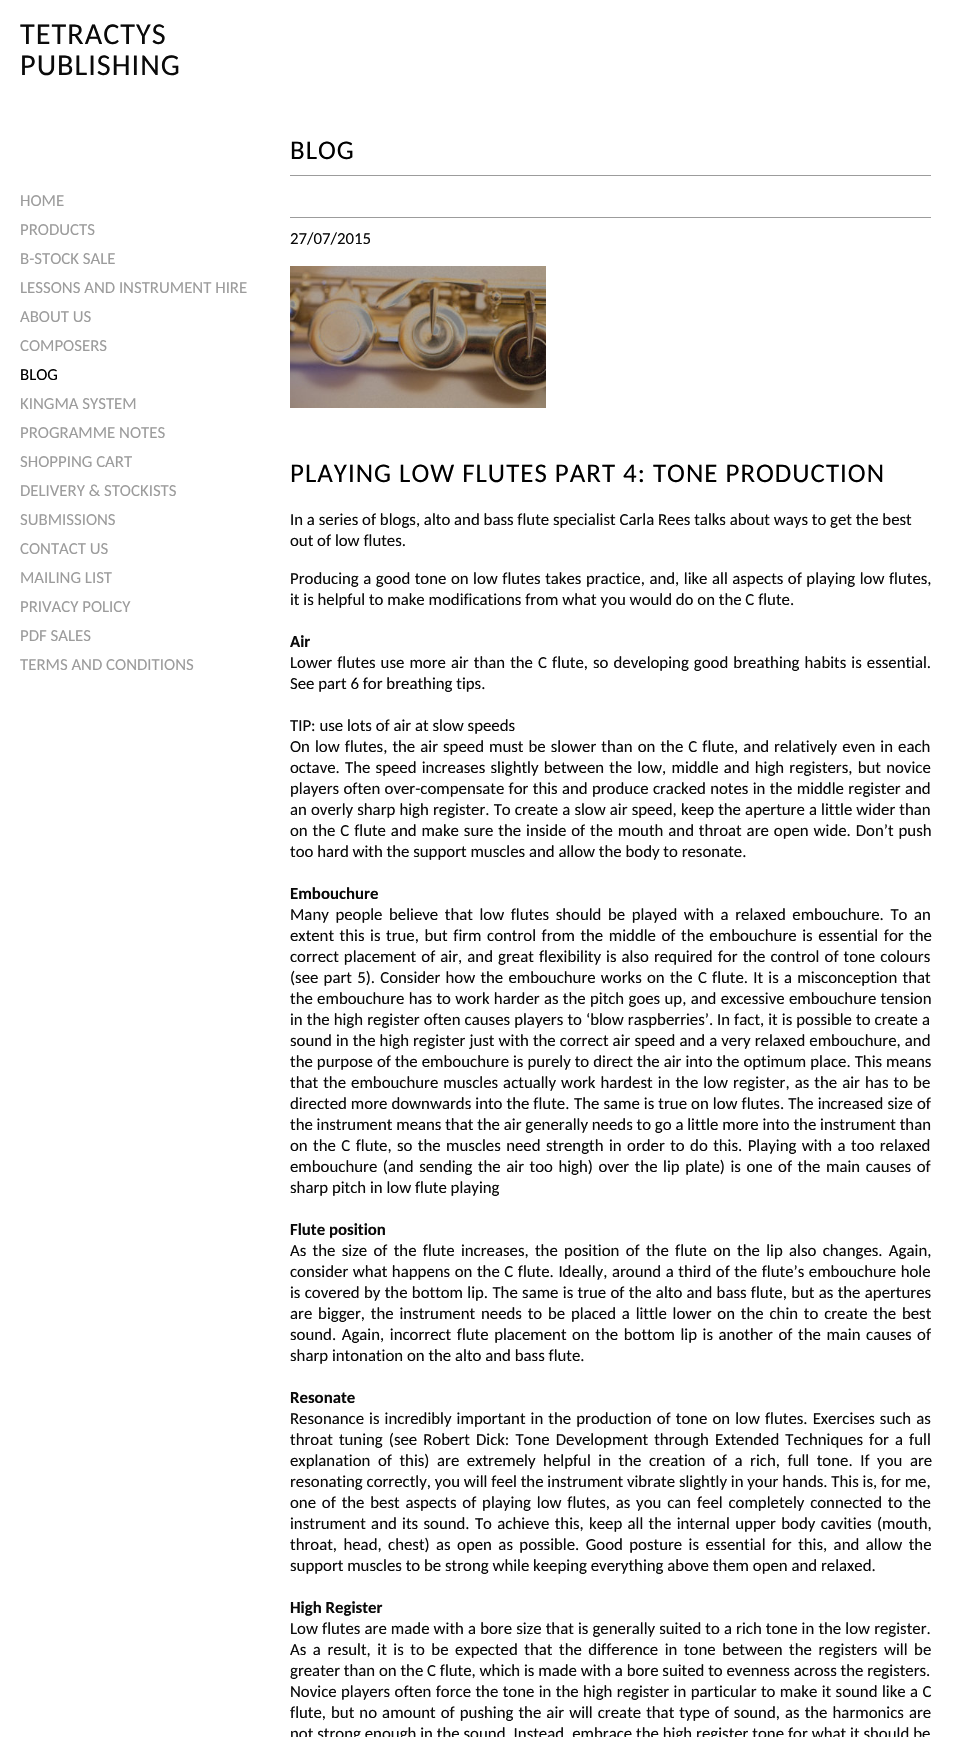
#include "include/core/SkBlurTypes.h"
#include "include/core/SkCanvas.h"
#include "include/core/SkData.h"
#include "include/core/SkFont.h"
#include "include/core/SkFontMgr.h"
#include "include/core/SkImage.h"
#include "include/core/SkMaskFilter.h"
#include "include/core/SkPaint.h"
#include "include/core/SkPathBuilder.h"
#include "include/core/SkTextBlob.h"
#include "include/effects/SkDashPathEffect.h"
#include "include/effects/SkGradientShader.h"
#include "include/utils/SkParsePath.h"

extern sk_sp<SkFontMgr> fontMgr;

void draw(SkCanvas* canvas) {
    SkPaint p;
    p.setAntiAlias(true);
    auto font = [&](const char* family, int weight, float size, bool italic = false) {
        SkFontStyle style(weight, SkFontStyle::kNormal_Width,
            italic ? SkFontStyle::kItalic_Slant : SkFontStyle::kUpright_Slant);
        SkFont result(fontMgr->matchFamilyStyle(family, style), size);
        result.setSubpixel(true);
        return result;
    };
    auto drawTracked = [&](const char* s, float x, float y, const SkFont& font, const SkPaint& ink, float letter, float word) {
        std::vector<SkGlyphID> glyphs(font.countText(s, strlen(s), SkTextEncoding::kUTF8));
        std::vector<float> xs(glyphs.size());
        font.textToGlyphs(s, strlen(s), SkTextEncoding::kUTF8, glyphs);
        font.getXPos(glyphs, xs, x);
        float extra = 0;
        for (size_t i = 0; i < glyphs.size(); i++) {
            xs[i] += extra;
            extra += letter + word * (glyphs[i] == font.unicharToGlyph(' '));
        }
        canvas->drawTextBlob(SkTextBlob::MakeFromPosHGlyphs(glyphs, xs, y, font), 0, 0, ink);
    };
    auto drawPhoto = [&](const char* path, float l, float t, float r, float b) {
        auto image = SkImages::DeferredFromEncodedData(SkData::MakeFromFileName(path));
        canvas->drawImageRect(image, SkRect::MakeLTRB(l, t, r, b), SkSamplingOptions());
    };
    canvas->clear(0xFFFFFFFF);
    auto font1 = font("Carlito", 400, 30.25f);
    p.setColor(0xFF0A0A0A);
    drawTracked("TETRACTYS", 20, 44, font1, p, 1, 0);
    drawTracked("PUBLISHING", 20, 75, font1, p, 1, 0);
    auto font2 = font("Carlito", 400, 16.8f);
    p.setColor(0xFF9C9C9C);
    {
        const struct { const char* s; float x, y; } items[] = {
            {"HOME", 20, 206},
            {"PRODUCTS", 20, 235},
            {"B-STOCK SALE", 20, 264},
            {"LESSONS AND INSTRUMENT HIRE", 20, 293},
            {"ABOUT US", 20, 322},
            {"COMPOSERS", 20, 351},
        };
        for (auto [s, x, y] : items) {
            canvas->drawString(s, x, y, font2, p);
        }
    }
    p.setColor(0xFF000000);
    canvas->drawString("BLOG", 20, 380, font2, p);
    p.setColor(0xFF9C9C9C);
    {
        const struct { const char* s; float x, y; } items[] = {
            {"KINGMA SYSTEM", 20, 409},
            {"PROGRAMME NOTES", 20, 438},
            {"SHOPPING CART", 20, 467},
            {"DELIVERY & STOCKISTS", 20, 496},
            {"SUBMISSIONS", 20, 525},
            {"CONTACT US", 20, 554},
            {"MAILING LIST", 20, 583},
            {"PRIVACY POLICY", 20, 612},
            {"PDF SALES", 20, 641},
            {"TERMS AND CONDITIONS", 20, 670},
        };
        for (auto [s, x, y] : items) {
            canvas->drawString(s, x, y, font2, p);
        }
    }
    auto font3 = font("Carlito", 400, 26.9f);
    p.setColor(0xFF000000);
    drawTracked("BLOG", 290, 159, font3, p, 1, 0);
    p.setColor(0xFF9C9C9C);
    canvas->drawRect(SkRect::MakeLTRB(290, 175, 931, 176), p);
    canvas->drawRect(SkRect::MakeLTRB(290, 217, 931, 218), p);
    p.setColor(0xFF0A0A0A);
    canvas->drawString("27/07/2015", 290, 244, font2, p);
    drawPhoto("media/1.png", 290, 266, 546, 408);
    p.setColor(0xFF000000);
    drawTracked("PLAYING LOW FLUTES PART 4: TONE PRODUCTION", 290, 482, font3, p, 1, 0);
    p.setColor(0xFF0A0A0A);
    canvas->drawString("In a series of blogs, alto and bass flute specialist Carla Rees talks about ways to get the best", 290, 525, font2, p);
    canvas->drawString("out of low flutes.", 290, 546, font2, p);
    drawTracked("Producing a good tone on low flutes takes practice, and, like all aspects of playing low flutes,", 290, 584, font2, p, 0, 0.7f);
    canvas->drawString("it is helpful to make modifications from what you would do on the C flute.", 290, 605, font2, p);
    auto font4 = font("Carlito", 700, 16.8f);
    canvas->drawString("Air", 290, 647, font4, p);
    drawTracked("Lower flutes use more air than the C flute, so developing good breathing habits is essential.", 290, 668, font2, p, 0, 1.25f);
    canvas->drawString("See part 6 for breathing tips.", 290, 689, font2, p);
    canvas->drawString("TIP: use lots of air at slow speeds", 290, 731, font2, p);
    drawTracked("On low flutes, the air speed must be slower than on the C flute, and relatively even in each", 290, 752, font2, p, 0, 1.25f);
    drawTracked("octave. The speed increases slightly between the low, middle and high registers, but novice", 290, 773, font2, p, 0, 1.4f);
    drawTracked("players often over-compensate for this and produce cracked notes in the middle register and", 290, 794, font2, p, 0, 0.5f);
    drawTracked("an overly sharp high register. To create a slow air speed, keep the aperture a little wider than", 290, 815, font2, p, 0, 0.3f);
    drawTracked("on the C flute and make sure the inside of the mouth and throat are open wide. Don’t push", 290, 836, font2, p, 0, 1.1f);
    canvas->drawString("too hard with the support muscles and allow the body to resonate.", 290, 857, font2, p);
    canvas->drawString("Embouchure", 290, 899, font4, p);
    drawTracked("Many people believe that low flutes should be played with a relaxed embouchure. To an", 290, 920, font2, p, 0, 2.75f);
    drawTracked("extent this is true, but firm control from the middle of the embouchure is essential for the", 290, 941, font2, p, 0, 1.75f);
    drawTracked("correct placement of air, and great flexibility is also required for the control of tone colours", 290, 962, font2, p, 0, 1.25f);
    drawTracked("(see part 5). Consider how the embouchure works on the C flute. It is a misconception that", 290, 983, font2, p, 0, 1.4f);
    drawTracked("the embouchure has to work harder as the pitch goes up, and excessive embouchure tension", 290, 1004, font2, p, 0, 0.5f);
    drawTracked("in the high register often causes players to ‘blow raspberries’.", 290, 1025, font2, p, 0, 0.3f);
    drawTracked("In fact, it is possible to create a", 717, 1025, font2, p, 0, 0.25f);
    drawTracked("sound in the high register just with the correct air speed and a very relaxed embouchure, and", 290, 1046, font2, p, 0, 0.25f);
    drawTracked("the purpose of the embouchure is purely to direct the air into the optimum place. This means", 290, 1067, font2, p, 0, 0.2f);
    drawTracked("that the embouchure muscles actually work hardest in the low register, as the air has to be", 290, 1088, font2, p, 0, 1.25f);
    drawTracked("directed more downwards into the flute.", 290, 1109, font2, p, 0, 0.25f);
    drawTracked("The same is true on low flutes. The increased size of", 574, 1109, font2, p, 0, 0.25f);
    canvas->drawString("the instrument means that the air generally needs to go a little more into the instrument than", 290, 1130, font2, p);
    drawTracked("on the C flute, so the muscles need strength in order to do this. Playing with a too relaxed", 290, 1151, font2, p, 0, 1.6f);
    drawTracked("embouchure (and sending the air too high) over the lip plate) is one of the main causes of", 290, 1172, font2, p, 0, 1.75f);
    canvas->drawString("sharp pitch in low flute playing", 290, 1193, font2, p);
    canvas->drawString("Flute position", 290, 1235, font4, p);
    drawTracked("As the size of the flute increases, the position of the flute on the lip also changes. Again,", 290, 1256, font2, p, 0, 2.5f);
    drawTracked("consider what happens on the C flute. Ideally, around a third of the flute’s embouchure hole", 290, 1277, font2, p, 0, 0.75f);
    drawTracked("is covered by the bottom lip. The same is true of the alto and bass flute, but as the apertures", 290, 1298, font2, p, 0, 0.5f);
    drawTracked("are bigger, the instrument needs to be placed a little lower on the chin to create the best", 290, 1319, font2, p, 0, 2);
    drawTracked("sound. Again, incorrect flute placement on the bottom lip is another of the main causes of", 290, 1340, font2, p, 0, 1.75f);
    canvas->drawString("sharp intonation on the alto and bass flute.", 290, 1361, font2, p);
    canvas->drawString("Resonate", 290, 1403, font4, p);
    drawTracked("Resonance is incredibly important in the production of tone on low flutes. Exercises such as", 290, 1424, font2, p, 0, 1.25f);
    drawTracked("throat tuning (see Robert Dick: Tone Development through Extended Techniques for a full", 290, 1445, font2, p, 0, 2.25f);
    drawTracked("explanation of this) are extremely helpful in the creation of a rich, full tone. If you are", 290, 1466, font2, p, 0, 3.75f);
    canvas->drawString("resonating correctly, you will feel the instrument vibrate slightly in your hands. This is, for me,", 290, 1487, font2, p);
    drawTracked("one of the best aspects of playing low flutes, as you can feel completely connected to the", 290, 1508, font2, p, 0, 2);
    drawTracked("instrument and its sound. To achieve this, keep all the internal upper body cavities (mouth,", 290, 1529, font2, p, 0, 1.5f);
    drawTracked("throat, head, chest) as open as possible. Good posture is essential for this, and allow the", 290, 1550, font2, p, 0, 2.6f);
    canvas->drawString("support muscles to be strong while keeping everything above them open and relaxed.", 290, 1571, font2, p);
    canvas->drawString("High Register", 290, 1613, font4, p);
    drawTracked("Low flutes are made with a bore size that is generally suited to a rich tone in the low register.", 290, 1634, font2, p, 0, 0.3f);
    drawTracked("As a result, it is to be expected that the difference in tone between the registers will be", 290, 1655, font2, p, 0, 2.75f);
    canvas->drawString("greater than on the C flute, which is made with a bore suited to evenness across the registers.", 290, 1676, font2, p);
    drawTracked("Novice players often force the tone in the high register in particular to make it sound like a C", 290, 1697, font2, p, 0, 0.6f);
    drawTracked("flute, but no amount of pushing the air will create that type of sound, as the harmonics are", 290, 1718, font2, p, 0, 1.25f);
    drawTracked("not strong enough in the sound. Instead, embrace the high register tone for what it should be", 290, 1739, font2, p, 0, 0.1f);
}
